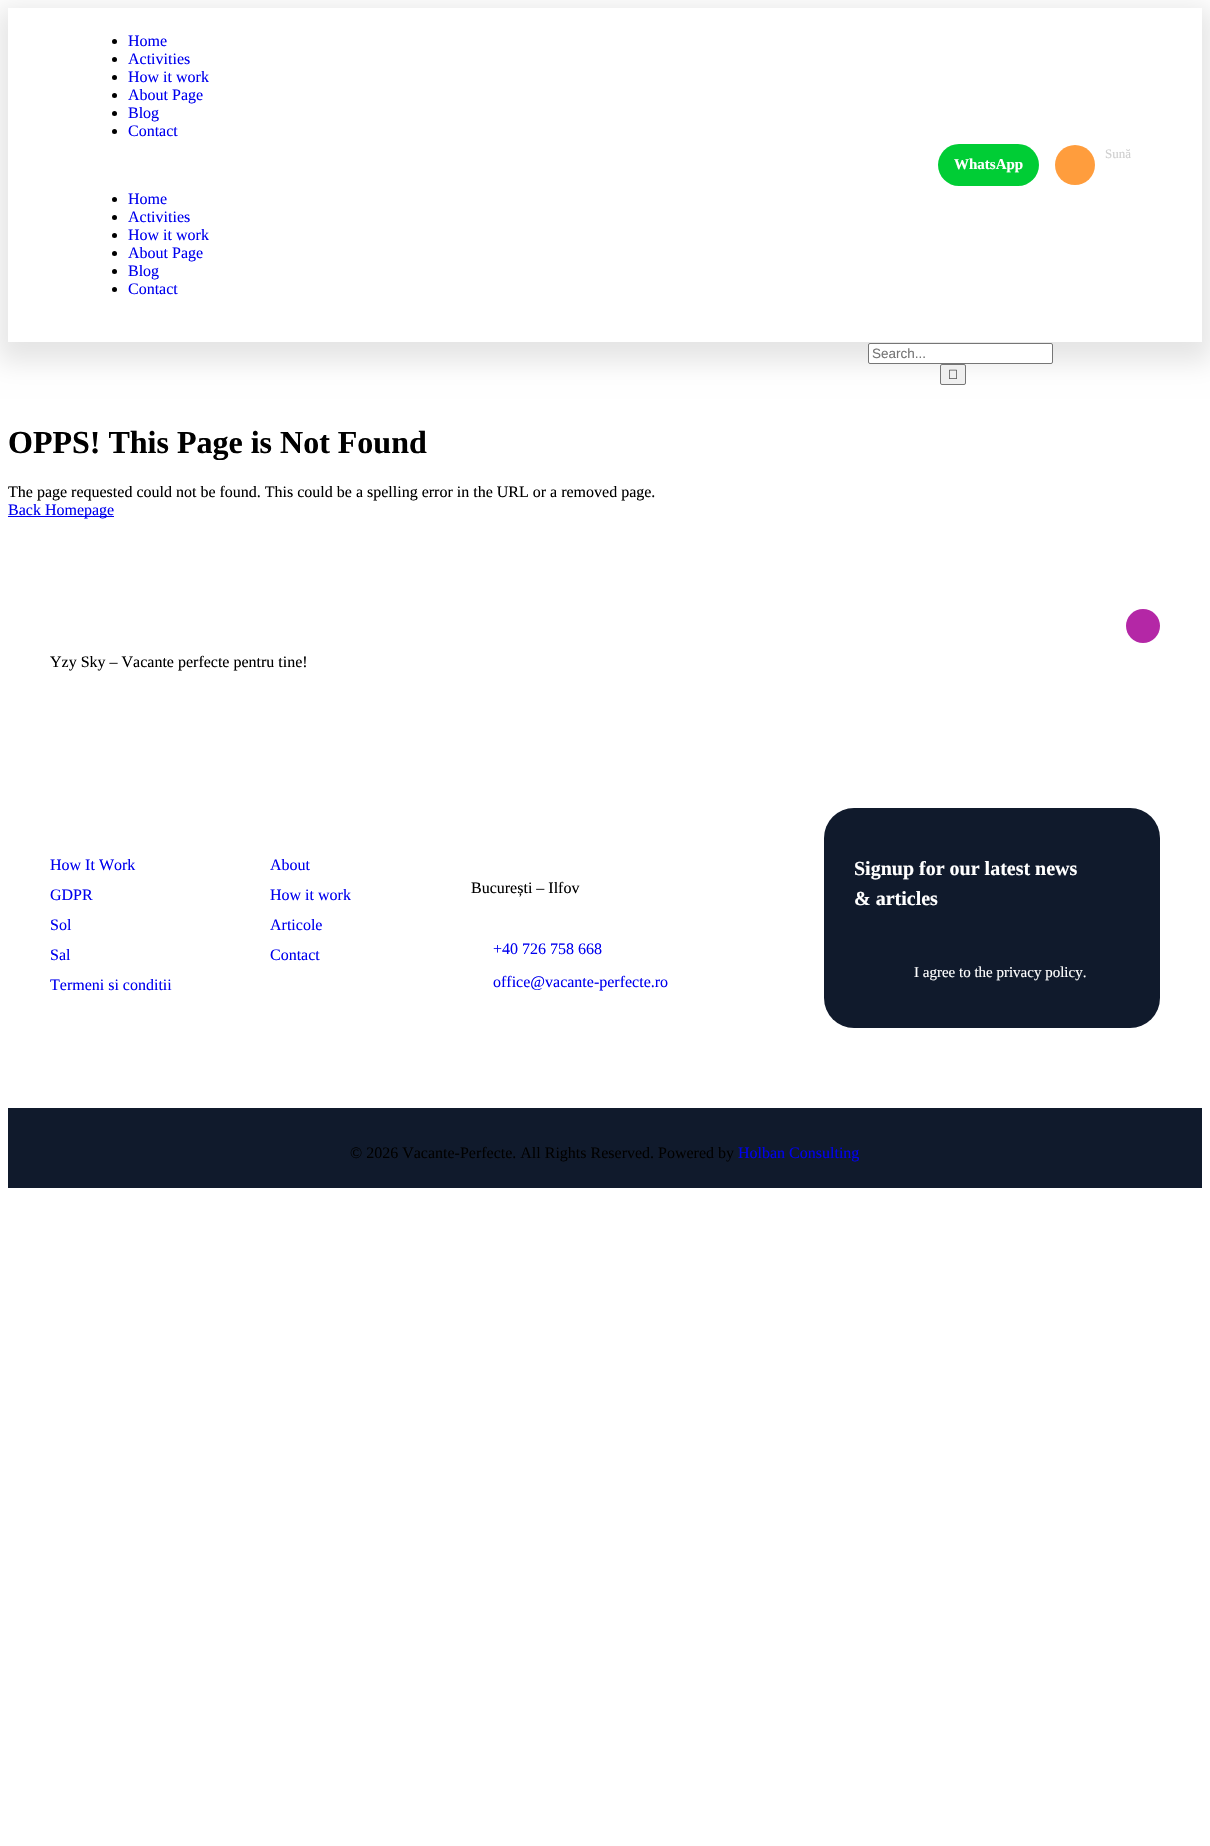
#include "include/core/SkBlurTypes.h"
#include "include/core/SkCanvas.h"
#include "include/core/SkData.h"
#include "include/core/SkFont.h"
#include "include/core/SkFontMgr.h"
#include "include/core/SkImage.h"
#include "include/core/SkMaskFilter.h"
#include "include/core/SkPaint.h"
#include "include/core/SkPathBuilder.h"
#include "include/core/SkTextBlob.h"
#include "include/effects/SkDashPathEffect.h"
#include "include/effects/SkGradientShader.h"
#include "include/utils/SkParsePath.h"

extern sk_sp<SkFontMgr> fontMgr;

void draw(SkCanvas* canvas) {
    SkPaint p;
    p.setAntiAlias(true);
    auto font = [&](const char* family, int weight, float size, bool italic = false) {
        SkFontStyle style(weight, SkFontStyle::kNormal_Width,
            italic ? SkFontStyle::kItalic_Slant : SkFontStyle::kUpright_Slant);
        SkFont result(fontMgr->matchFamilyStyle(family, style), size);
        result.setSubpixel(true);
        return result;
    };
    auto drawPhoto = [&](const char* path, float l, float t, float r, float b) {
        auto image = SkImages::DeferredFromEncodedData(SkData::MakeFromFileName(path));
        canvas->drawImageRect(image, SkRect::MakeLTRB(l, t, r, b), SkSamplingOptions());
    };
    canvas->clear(0xFFFFFFFF);
    canvas->save();
    canvas->clipPath(SkPathBuilder(SkPathFillType::kEvenOdd).moveTo(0, 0).lineTo(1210, 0).lineTo(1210, 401).lineTo(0, 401).close().moveTo(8, 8).lineTo(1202, 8).lineTo(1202, 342).lineTo(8, 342).close().detach(), true);
    p.setColor(0x1A000000);
    p.setMaskFilter(SkMaskFilter::MakeBlur(kNormal_SkBlurStyle, 12.5f));
    canvas->drawRect(SkRect::MakeLTRB(-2, 8, 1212, 362), p);
    p.setMaskFilter(nullptr);
    canvas->restore();
    p.setColor(0xFF000000);
    canvas->drawCircle(114.5f, 41.5f, 2.5f, p);
    auto font1 = font("Liberation Serif", 400, 16);
    p.setColor(0xFF0000EE);
    canvas->drawString("Home", 128, 46, font1, p);
    p.setColor(0xFF000000);
    canvas->drawCircle(114.5f, 59.5f, 2.5f, p);
    p.setColor(0xFF0000EE);
    canvas->drawString("Activities", 128, 64, font1, p);
    p.setColor(0xFF000000);
    canvas->drawCircle(114.5f, 77.5f, 2.5f, p);
    p.setColor(0xFF0000EE);
    canvas->drawString("How it work", 128, 82, font1, p);
    p.setColor(0xFF000000);
    canvas->drawCircle(114.5f, 95.5f, 2.5f, p);
    p.setColor(0xFF0000EE);
    canvas->drawString("About Page", 128, 100, font1, p);
    p.setColor(0xFF000000);
    canvas->drawCircle(114.5f, 113.5f, 2.5f, p);
    p.setColor(0xFF0000EE);
    canvas->drawString("Blog", 128, 118, font1, p);
    p.setColor(0xFF000000);
    canvas->drawCircle(114.5f, 131.5f, 2.5f, p);
    p.setColor(0xFF0000EE);
    canvas->drawString("Contact", 128, 136, font1, p);
    p.setColor(0xFF000000);
    canvas->drawCircle(114.5f, 199.5f, 2.5f, p);
    p.setColor(0xFF0000EE);
    canvas->drawString("Home", 128, 204, font1, p);
    p.setColor(0xFF000000);
    canvas->drawCircle(114.5f, 217.5f, 2.5f, p);
    p.setColor(0xFF0000EE);
    canvas->drawString("Activities", 128, 222, font1, p);
    p.setColor(0xFF000000);
    canvas->drawCircle(114.5f, 235.5f, 2.5f, p);
    p.setColor(0xFF0000EE);
    canvas->drawString("How it work", 128, 240, font1, p);
    p.setColor(0xFF000000);
    canvas->drawCircle(114.5f, 253.5f, 2.5f, p);
    p.setColor(0xFF0000EE);
    canvas->drawString("About Page", 128, 258, font1, p);
    p.setColor(0xFF000000);
    canvas->drawCircle(114.5f, 271.5f, 2.5f, p);
    p.setColor(0xFF0000EE);
    canvas->drawString("Blog", 128, 276, font1, p);
    p.setColor(0xFF000000);
    canvas->drawCircle(114.5f, 289.5f, 2.5f, p);
    p.setColor(0xFF0000EE);
    canvas->drawString("Contact", 128, 294, font1, p);
    p.setColor(0xFFFF9D3D);
    canvas->drawCircle(1075, 165, 20, p);
    auto font2 = font("Liberation Serif", 400, 13);
    p.setColor(0xFFCFCFCF);
    canvas->drawString("Sună", 1105, 158, font2, p);
    p.setColor(0xFF00CD35);
    canvas->drawRoundRect(SkRect::MakeLTRB(938, 144, 1039, 186), 21, 21, p);
    auto font3 = font("Liberation Serif", 700, 15);
    p.setColor(0xFFFFFFFF);
    canvas->drawString("WhatsApp", 954, 169, font3, p);
    canvas->drawRoundRect(SkRect::MakeLTRB(868.5f, 343.5f, 1052.5f, 363.5f), 1.5f, 1.5f, p);
    p.setStyle(SkPaint::kStroke_Style);
    p.setStrokeWidth(1);
    p.setColor(0xFF767676);
    canvas->drawRoundRect(SkRect::MakeLTRB(868.5f, 343.5f, 1052.5f, 363.5f), 1.5f, 1.5f, p);
    auto font4 = font("Liberation Sans", 400, 13.5f);
    p.setStyle(SkPaint::kFill_Style);
    p.setColor(0xFF757575);
    canvas->drawString("Search...", 872, 358, font4, p);
    p.setColor(0xFFEFEFEF);
    canvas->drawRoundRect(SkRect::MakeLTRB(940.5f, 364.5f, 965.5f, 384.5f), 1.5f, 1.5f, p);
    p.setStyle(SkPaint::kStroke_Style);
    p.setColor(0xFF767676);
    canvas->drawRoundRect(SkRect::MakeLTRB(940.5f, 364.5f, 965.5f, 384.5f), 1.5f, 1.5f, p);
    drawPhoto("media/1.png", 949, 369, 957, 379);
    auto font5 = font("Liberation Serif", 700, 32);
    p.setStyle(SkPaint::kFill_Style);
    p.setColor(0xFF000000);
    canvas->drawString("OPPS! This Page is Not Found", 8, 453, font5, p);
    canvas->drawString("The page requested could not be found. This could be a spelling error in the URL or a removed page.", 8, 497, font1, p);
    p.setColor(0xFF0000EE);
    canvas->drawRect(SkRect::MakeLTRB(8, 516, 114, 517), p);
    canvas->drawString("Back Homepage", 8, 515, font1, p);
    p.setColor(0xFFB427A6);
    canvas->drawCircle(1143, 626, 17, p);
    p.setColor(0xFF000000);
    canvas->drawString("Yzy Sky – Vacante perfecte pentru tine!", 50, 667, font1, p);
    p.setColor(0xFF0000EE);
    {
        const struct { const char* s; float x, y; } items[] = {
            {"How It Work", 50, 870},
            {"GDPR", 50, 900},
            {"Sol", 50, 930},
            {"Sal", 50, 960},
            {"Termeni si conditii", 50, 990},
            {"About", 270, 870},
            {"How it work", 270, 900},
            {"Articole", 270, 930},
            {"Contact", 270, 960},
        };
        for (auto [s, x, y] : items) {
            canvas->drawString(s, x, y, font1, p);
        }
    }
    p.setColor(0xFF000000);
    canvas->drawString("București – Ilfov", 471, 893, font1, p);
    p.setColor(0xFF0000EE);
    canvas->drawString("+40 726 758 668", 493, 954, font1, p);
    canvas->drawString("office@vacante-perfecte.ro", 493, 987, font1, p);
    p.setColor(0xFF101A2C);
    canvas->drawRoundRect(SkRect::MakeLTRB(824, 808, 1160, 1028), 30, 30, p);
    auto font6 = font("Liberation Serif", 700, 20);
    p.setColor(0xFFFFFFFF);
    canvas->drawString("Signup for our latest news", 854, 875, font6, p);
    canvas->drawString("& articles", 854, 905, font6, p);
    auto font7 = font("Liberation Serif", 400, 15);
    canvas->drawString("I agree to the privacy policy.", 914, 977, font7, p);
    p.setColor(0xFF101A2C);
    canvas->drawRect(SkRect::MakeLTRB(8, 1108, 1202, 1188), p);
    p.setColor(0xFF000000);
    canvas->drawString("© 2026 Vacante-Perfecte. All Rights Reserved. Powered by", 350, 1158, font1, p);
    p.setColor(0xFF0000EE);
    canvas->drawString("Holban Consulting", 738, 1158, font1, p);
}
